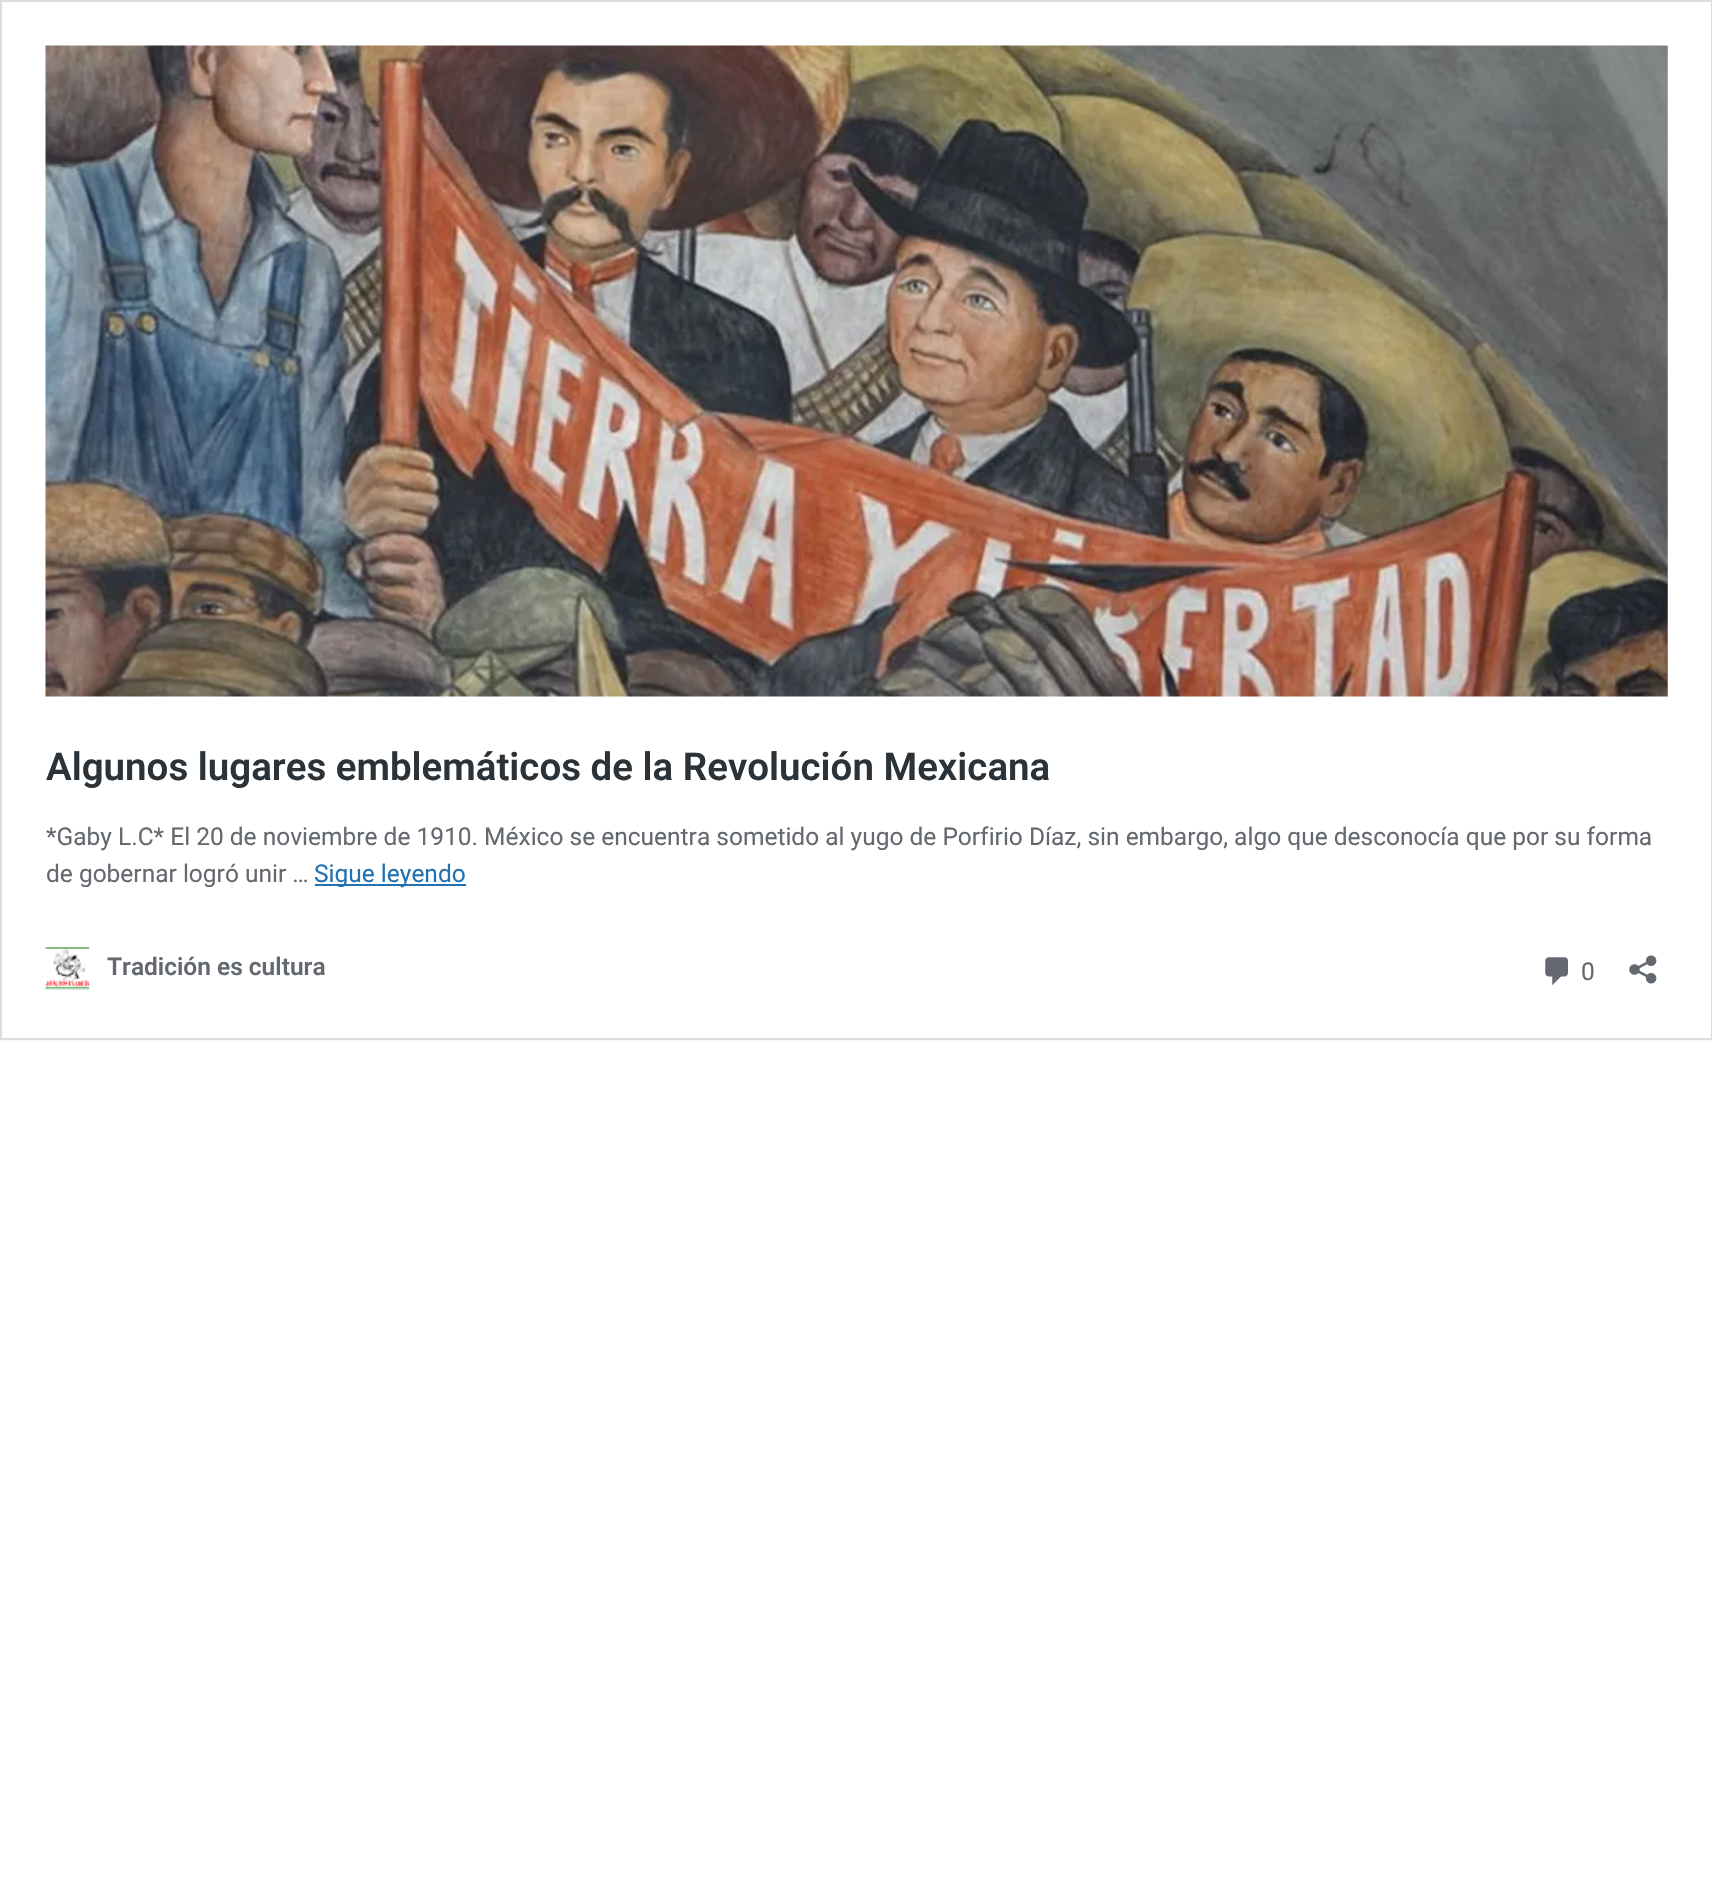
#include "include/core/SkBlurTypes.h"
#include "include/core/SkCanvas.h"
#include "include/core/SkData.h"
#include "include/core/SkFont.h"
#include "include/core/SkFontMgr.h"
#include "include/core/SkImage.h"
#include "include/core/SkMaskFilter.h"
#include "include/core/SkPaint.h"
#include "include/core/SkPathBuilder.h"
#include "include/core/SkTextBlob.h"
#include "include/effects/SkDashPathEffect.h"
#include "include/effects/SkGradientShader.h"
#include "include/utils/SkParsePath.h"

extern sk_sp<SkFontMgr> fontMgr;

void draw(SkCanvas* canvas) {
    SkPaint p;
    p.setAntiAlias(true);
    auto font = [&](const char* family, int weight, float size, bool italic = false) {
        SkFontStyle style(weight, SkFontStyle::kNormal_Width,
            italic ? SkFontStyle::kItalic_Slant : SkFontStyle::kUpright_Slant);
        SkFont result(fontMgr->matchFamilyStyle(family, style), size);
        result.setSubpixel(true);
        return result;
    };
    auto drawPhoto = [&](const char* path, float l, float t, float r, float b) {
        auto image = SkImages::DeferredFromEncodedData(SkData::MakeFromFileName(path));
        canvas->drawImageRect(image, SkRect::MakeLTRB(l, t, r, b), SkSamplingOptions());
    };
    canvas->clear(0xFFFFFFFF);
    p.setColor(0x0D000000);
    p.setMaskFilter(SkMaskFilter::MakeBlur(kNormal_SkBlurStyle, 1));
    canvas->drawRect(SkRect::MakeLTRB(0, 2, 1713, 1041), p);
    p.setMaskFilter(nullptr);
    p.setColor(0xFFFFFFFF);
    canvas->drawRect(SkRect::MakeLTRB(1, 1, 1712, 1039), p);
    p.setStyle(SkPaint::kStroke_Style);
    p.setStrokeWidth(2);
    p.setColor(0xFFDCDCDE);
    canvas->drawRect(SkRect::MakeLTRB(1, 1, 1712, 1039), p);
    drawPhoto("media/1.png", 45, 45, 1668, 697);
    auto font1 = font("Roboto", 600, 38.5f);
    p.setStyle(SkPaint::kFill_Style);
    p.setColor(0xFF2C3338);
    canvas->drawString("Algunos lugares emblemáticos de la Revolución Mexicana", 46, 780, font1, p);
    auto font2 = font("Roboto", 400, 24.5f);
    p.setColor(0xFF646970);
    canvas->drawString("*Gaby L.C* El 20 de noviembre de 1910. México se encuentra sometido al yugo de Porfirio Díaz, sin embargo, algo que desconocía que por su forma", 46, 845, font2, p);
    canvas->drawString("de gobernar logró unir …", 46, 882, font2, p);
    p.setColor(0xFF2271B1);
    canvas->drawRect(SkRect::MakeLTRB(315, 884, 466, 886), p);
    canvas->drawString("Sigue leyendo", 314, 882, font2, p);
    drawPhoto("media/2.png", 45, 947, 90, 990);
    auto font3 = font("Roboto", 600, 24.5f);
    p.setColor(0xFF646970);
    canvas->drawString("Tradición es cultura", 107, 975, font3, p);
    drawPhoto("media/3.png", 1545, 957, 1568, 986);
    canvas->drawString("0", 1581, 980, font2, p);
    drawPhoto("media/4.png", 1629, 955, 1657, 984);
}
